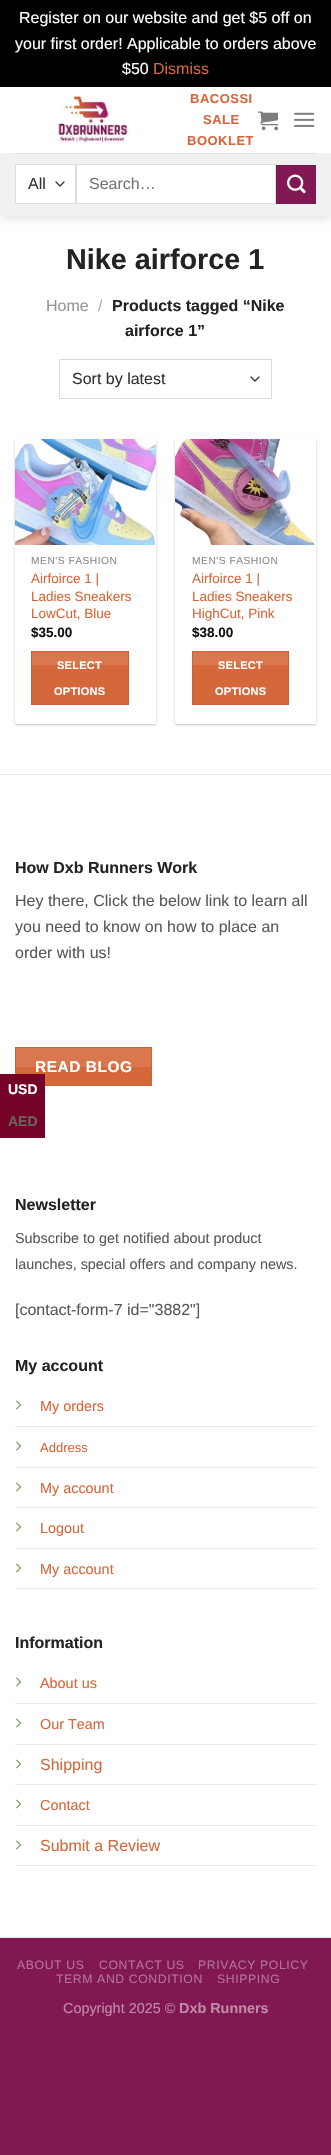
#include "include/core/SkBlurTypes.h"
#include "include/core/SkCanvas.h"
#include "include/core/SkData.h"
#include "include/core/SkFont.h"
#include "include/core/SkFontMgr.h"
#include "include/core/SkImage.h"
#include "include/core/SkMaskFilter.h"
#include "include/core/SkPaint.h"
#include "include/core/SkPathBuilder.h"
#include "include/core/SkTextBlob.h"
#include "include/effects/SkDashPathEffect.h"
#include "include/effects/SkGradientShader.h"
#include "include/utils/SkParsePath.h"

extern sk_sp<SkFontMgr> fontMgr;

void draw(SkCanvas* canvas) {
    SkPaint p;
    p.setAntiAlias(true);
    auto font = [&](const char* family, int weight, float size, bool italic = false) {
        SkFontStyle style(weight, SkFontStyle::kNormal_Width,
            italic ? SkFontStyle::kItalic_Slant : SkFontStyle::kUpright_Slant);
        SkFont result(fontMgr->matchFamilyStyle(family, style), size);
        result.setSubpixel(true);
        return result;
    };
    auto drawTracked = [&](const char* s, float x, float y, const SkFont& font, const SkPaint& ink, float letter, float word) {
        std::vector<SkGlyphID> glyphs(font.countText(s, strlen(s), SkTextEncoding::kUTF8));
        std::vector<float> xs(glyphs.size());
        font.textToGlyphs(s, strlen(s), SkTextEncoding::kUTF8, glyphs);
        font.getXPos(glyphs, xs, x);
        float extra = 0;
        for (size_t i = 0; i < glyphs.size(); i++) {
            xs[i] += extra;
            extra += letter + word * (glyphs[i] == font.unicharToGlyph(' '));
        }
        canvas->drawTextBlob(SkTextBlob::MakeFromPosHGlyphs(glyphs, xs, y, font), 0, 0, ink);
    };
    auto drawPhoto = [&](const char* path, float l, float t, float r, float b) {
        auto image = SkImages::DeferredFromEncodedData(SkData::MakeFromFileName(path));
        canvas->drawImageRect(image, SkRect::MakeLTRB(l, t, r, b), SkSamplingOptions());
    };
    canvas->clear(0xFF811753);
    p.setColor(0xFF000000);
    canvas->drawRect(SkRect::MakeLTRB(0, 0, 331, 87), p);
    auto font1 = font("Liberation Sans", 400, 16);
    p.setColor(0xFFFFFFFF);
    {
        const struct { const char* s; float x, y; } items[] = {
            {"Register on our website and get $5 off on", 19, 23},
            {"your first order! Applicable to orders above", 15, 49},
            {"$50", 122, 74},
        };
        for (auto [s, x, y] : items) {
            canvas->drawString(s, x, y, font1, p);
        }
    }
    p.setColor(0xFFD5683B);
    canvas->drawString("Dismiss", 153, 74, font1, p);
    p.setColor(0xFFFFFFFF);
    canvas->drawRect(SkRect::MakeLTRB(0, 87, 331, 1937), p);
    canvas->save();
    canvas->clipPath(SkPathBuilder(SkPathFillType::kEvenOdd).moveTo(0, 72).lineTo(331, 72).lineTo(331, 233).lineTo(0, 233).close().moveTo(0, 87).lineTo(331, 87).lineTo(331, 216).lineTo(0, 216).close().detach(), true);
    p.setColor(0x26000000);
    p.setMaskFilter(SkMaskFilter::MakeBlur(kNormal_SkBlurStyle, 5));
    canvas->drawRect(SkRect::MakeLTRB(1, 88, 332, 217), p);
    p.setMaskFilter(nullptr);
    canvas->restore();
    drawPhoto("media/1.png", 58, 96, 130, 144);
    auto font2 = font("Liberation Sans", 700, 13);
    p.setColor(0xFFD5683B);
    {
        const struct { const char* s; float x, y; } items[] = {
            {"BACOSSI", 190, 103},
            {"SALE", 203, 124},
            {"BOOKLET", 187, 145},
        };
        for (auto [s, x, y] : items) {
            drawTracked(s, x, y, font2, p, 0.5f, 0);
        }
    }
    drawPhoto("media/2.png", 258, 111, 278, 131);
    drawPhoto("media/3.png", 294, 112, 315, 127);
    {
        const struct { float l, t, r, b; SkColor color; } items[] = {
            {0, 153, 331, 216, 0xFFF1F1F1},
            {15, 153, 316, 154, 0xFFE2E2E2},
            {16, 165, 75, 203, 0xFFFFFFFF},
        };
        for (auto [l, t, r, b, color] : items) {
            p.setColor(color);
            canvas->drawRect(SkRect::MakeLTRB(l, t, r, b), p);
        }
    }
    p.setStyle(SkPaint::kStroke_Style);
    p.setStrokeWidth(1.3f);
    p.setStrokeCap(SkPaint::kRound_Cap);
    p.setStrokeJoin(SkPaint::kRound_Join);
    p.setColor(0xFF333333);
    canvas->drawPath(SkPathBuilder().moveTo(56, 182).lineTo(60, 186).lineTo(64, 182).detach(), p);
    p.setStrokeWidth(1);
    p.setStrokeCap(SkPaint::kButt_Cap);
    p.setStrokeJoin(SkPaint::kMiter_Join);
    p.setColor(0xFFDDDDDD);
    canvas->drawRect(SkRect::MakeLTRB(15.5f, 164.5f, 75.5f, 203.5f), p);
    p.setStyle(SkPaint::kFill_Style);
    p.setColor(0xFF333333);
    canvas->drawString("All", 28, 189, font1, p);
    p.setColor(0xFFFFFFFF);
    canvas->drawRect(SkRect::MakeLTRB(76.5f, 164.5f, 275.5f, 203.5f), p);
    p.setStyle(SkPaint::kStroke_Style);
    p.setColor(0xFFDDDDDD);
    canvas->drawRect(SkRect::MakeLTRB(76.5f, 164.5f, 275.5f, 203.5f), p);
    p.setStyle(SkPaint::kFill_Style);
    p.setColor(0xFF757575);
    canvas->drawString("Search…", 89, 189, font1, p);
    p.setColor(0xFF811753);
    canvas->drawRect(SkRect::MakeLTRB(276.5f, 165.5f, 315.5f, 203.5f), p);
    p.setStyle(SkPaint::kStroke_Style);
    p.setColor(0xFF7B164F);
    canvas->drawRect(SkRect::MakeLTRB(276.5f, 165.5f, 315.5f, 203.5f), p);
    drawPhoto("media/4.png", 287, 174, 306, 194);
    auto font3 = font("Liberation Sans", 700, 28.75f);
    p.setStyle(SkPaint::kFill_Style);
    p.setColor(0xFF232323);
    canvas->drawString("Nike airforce 1", 66, 269, font3, p);
    p.setColor(0xFF949494);
    canvas->drawString("Home", 46, 311, font1, p);
    p.setColor(0xFFB2B2B2);
    canvas->drawString("/", 98, 311, font1, p);
    auto font4 = font("Liberation Sans", 700, 16);
    p.setColor(0xFF232323);
    canvas->drawString("Products tagged “Nike", 112, 311, font4, p);
    canvas->drawString("airforce 1”", 125, 336, font4, p);
    p.setStyle(SkPaint::kStroke_Style);
    p.setStrokeWidth(1.3f);
    p.setStrokeCap(SkPaint::kRound_Cap);
    p.setStrokeJoin(SkPaint::kRound_Join);
    p.setColor(0xFF333333);
    canvas->drawPath(SkPathBuilder().moveTo(251, 377).lineTo(255, 381).lineTo(259, 377).detach(), p);
    p.setStrokeWidth(1);
    p.setStrokeCap(SkPaint::kButt_Cap);
    p.setStrokeJoin(SkPaint::kMiter_Join);
    p.setColor(0xFFDDDDDD);
    canvas->drawRect(SkRect::MakeLTRB(59.5f, 359.5f, 271.5f, 398.5f), p);
    p.setStyle(SkPaint::kFill_Style);
    p.setColor(0xFF333333);
    canvas->drawString("Sort by latest", 72, 384, font1, p);
    canvas->save();
    canvas->clipPath(SkPathBuilder(SkPathFillType::kEvenOdd).moveTo(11, 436).lineTo(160, 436).lineTo(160, 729).lineTo(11, 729).close().moveTo(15, 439).lineTo(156, 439).lineTo(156, 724).lineTo(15, 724).close().detach(), true);
    p.setColor(0x3D000000);
    p.setMaskFilter(SkMaskFilter::MakeBlur(kNormal_SkBlurStyle, 1));
    canvas->drawRect(SkRect::MakeLTRB(15, 440, 156, 725), p);
    p.setMaskFilter(nullptr);
    canvas->restore();
    drawPhoto("media/5.png", 15, 439, 156, 545);
    auto font5 = font("Liberation Sans", 400, 10.25f);
    p.setColor(0xFF8B8B8B);
    drawTracked("MEN'S FASHION", 31, 564, font5, p, 0.5f, 0);
    auto font6 = font("Liberation Sans", 400, 13.5f);
    p.setColor(0xFFD5683B);
    {
        const struct { const char* s; float x, y; } items[] = {
            {"Airfoirce 1 |", 31, 583},
            {"Ladies Sneakers", 31, 601},
            {"LowCut, Blue", 31, 618},
        };
        for (auto [s, x, y] : items) {
            canvas->drawString(s, x, y, font6, p);
        }
    }
    auto font7 = font("Liberation Sans", 700, 13.5f);
    p.setColor(0xFF111111);
    canvas->drawString("$35.00", 31, 637, font7, p);
    p.setColor(0xFFD5683B);
    canvas->drawRect(SkRect::MakeLTRB(31.5f, 651.5f, 128.5f, 704.5f), p);
    p.setStyle(SkPaint::kStroke_Style);
    p.setColor(0xFFCA6338);
    canvas->drawRect(SkRect::MakeLTRB(31.5f, 651.5f, 128.5f, 704.5f), p);
    p.setStyle(SkPaint::kFill_Style);
    p.setColor(0x1AFFFFFF);
    canvas->drawRect(SkRect::MakeLTRB(32, 652, 128, 665), p);
    auto font8 = font("Liberation Sans", 700, 11);
    p.setColor(0xFFFFFFFF);
    drawTracked("SELECT", 57, 669, font8, p, 0.25f, 0);
    drawTracked("OPTIONS", 54, 695, font8, p, 0.25f, 0);
    canvas->save();
    canvas->clipPath(SkPathBuilder(SkPathFillType::kEvenOdd).moveTo(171, 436).lineTo(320, 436).lineTo(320, 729).lineTo(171, 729).close().moveTo(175, 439).lineTo(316, 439).lineTo(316, 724).lineTo(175, 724).close().detach(), true);
    p.setColor(0x3D000000);
    p.setMaskFilter(SkMaskFilter::MakeBlur(kNormal_SkBlurStyle, 1));
    canvas->drawRect(SkRect::MakeLTRB(175, 440, 316, 725), p);
    p.setMaskFilter(nullptr);
    canvas->restore();
    drawPhoto("media/6.png", 175, 439, 315, 545);
    p.setColor(0xFF8B8B8B);
    drawTracked("MEN'S FASHION", 192, 564, font5, p, 0.5f, 0);
    p.setColor(0xFFD5683B);
    {
        const struct { const char* s; float x, y; } items[] = {
            {"Airfoirce 1 |", 192, 583},
            {"Ladies Sneakers", 192, 601},
            {"HighCut, Pink", 192, 618},
        };
        for (auto [s, x, y] : items) {
            canvas->drawString(s, x, y, font6, p);
        }
    }
    p.setColor(0xFF111111);
    canvas->drawString("$38.00", 192, 637, font7, p);
    p.setColor(0xFFD5683B);
    canvas->drawRect(SkRect::MakeLTRB(192.5f, 651.5f, 288.5f, 704.5f), p);
    p.setStyle(SkPaint::kStroke_Style);
    p.setColor(0xFFCA6338);
    canvas->drawRect(SkRect::MakeLTRB(192.5f, 651.5f, 288.5f, 704.5f), p);
    p.setStyle(SkPaint::kFill_Style);
    p.setColor(0x1AFFFFFF);
    canvas->drawRect(SkRect::MakeLTRB(193, 652, 288, 665), p);
    p.setColor(0xFFFFFFFF);
    drawTracked("SELECT", 218, 669, font8, p, 0.25f, 0);
    drawTracked("OPTIONS", 215, 695, font8, p, 0.25f, 0);
    p.setColor(0xFFE6E6E6);
    canvas->drawRect(SkRect::MakeLTRB(0, 774, 331, 775), p);
    p.setColor(0xFF232323);
    canvas->drawString("How Dxb Runners Work", 15, 873, font4, p);
    p.setColor(0xFF595959);
    {
        const struct { const char* s; float x, y; } items[] = {
            {"Hey there, Click the below link to learn all", 15, 906},
            {"you need to know on how to place an", 15, 932},
            {"order with us!", 15, 958},
        };
        for (auto [s, x, y] : items) {
            canvas->drawString(s, x, y, font1, p);
        }
    }
    p.setColor(0xFFD5683B);
    canvas->drawRect(SkRect::MakeLTRB(15.5f, 1047.5f, 151.5f, 1085.5f), p);
    p.setStyle(SkPaint::kStroke_Style);
    p.setColor(0xFFCA6338);
    canvas->drawRect(SkRect::MakeLTRB(15.5f, 1047.5f, 151.5f, 1085.5f), p);
    p.setStyle(SkPaint::kFill_Style);
    p.setColor(0x1AFFFFFF);
    canvas->drawRect(SkRect::MakeLTRB(16, 1048, 151, 1067), p);
    auto font9 = font("Liberation Sans", 700, 15.5f);
    p.setColor(0xFFFFFFFF);
    drawTracked("READ BLOG", 35, 1072, font9, p, 0.5f, 0);
    p.setColor(0xFF232323);
    canvas->drawString("Newsletter", 15, 1210, font4, p);
    auto font10 = font("Liberation Sans", 400, 14.4f);
    p.setColor(0xFF595959);
    canvas->drawString("Subscribe to get notified about product", 15, 1243, font10, p);
    canvas->drawString("launches, special offers and company news.", 15, 1269, font10, p);
    canvas->drawString("[contact-form-7 id=\"3882\"]", 15, 1315, font1, p);
    p.setColor(0xFF232323);
    canvas->drawString("My account", 15, 1371, font4, p);
    p.setColor(0xFFECECEC);
    canvas->drawRect(SkRect::MakeLTRB(15, 1426, 316, 1427), p);
    drawPhoto("media/7.png", 16, 1400, 22, 1410);
    p.setColor(0xFFD5683B);
    canvas->drawString("My orders", 40, 1411, font10, p);
    p.setColor(0xFFECECEC);
    canvas->drawRect(SkRect::MakeLTRB(15, 1467, 316, 1468), p);
    drawPhoto("media/7.png", 16, 1441, 22, 1451);
    auto font11 = font("Liberation Sans", 400, 13);
    p.setColor(0xFFD5683B);
    canvas->drawString("Address", 40, 1452, font11, p);
    p.setColor(0xFFECECEC);
    canvas->drawRect(SkRect::MakeLTRB(15, 1507, 316, 1508), p);
    drawPhoto("media/7.png", 16, 1482, 22, 1492);
    p.setColor(0xFFD5683B);
    canvas->drawString("My account", 40, 1493, font10, p);
    p.setColor(0xFFECECEC);
    canvas->drawRect(SkRect::MakeLTRB(15, 1548, 316, 1549), p);
    drawPhoto("media/7.png", 16, 1522, 22, 1532);
    p.setColor(0xFFD5683B);
    canvas->drawString("Logout", 40, 1533, font10, p);
    p.setColor(0xFFECECEC);
    canvas->drawRect(SkRect::MakeLTRB(15, 1588, 316, 1589), p);
    drawPhoto("media/7.png", 16, 1563, 22, 1573);
    p.setColor(0xFFD5683B);
    canvas->drawString("My account", 40, 1574, font10, p);
    p.setColor(0xFF232323);
    canvas->drawString("Information", 15, 1648, font4, p);
    p.setColor(0xFFECECEC);
    canvas->drawRect(SkRect::MakeLTRB(15, 1703, 316, 1704), p);
    drawPhoto("media/7.png", 16, 1677, 22, 1687);
    p.setColor(0xFFD5683B);
    canvas->drawString("About us", 40, 1688, font10, p);
    p.setColor(0xFFECECEC);
    canvas->drawRect(SkRect::MakeLTRB(15, 1744, 316, 1745), p);
    drawPhoto("media/7.png", 16, 1718, 22, 1728);
    p.setColor(0xFFD5683B);
    canvas->drawString("Our Team", 40, 1729, font10, p);
    p.setColor(0xFFECECEC);
    canvas->drawRect(SkRect::MakeLTRB(15, 1784, 316, 1785), p);
    drawPhoto("media/7.png", 16, 1759, 22, 1769);
    p.setColor(0xFFD5683B);
    canvas->drawString("Shipping", 40, 1770, font1, p);
    p.setColor(0xFFECECEC);
    canvas->drawRect(SkRect::MakeLTRB(15, 1825, 316, 1826), p);
    drawPhoto("media/7.png", 16, 1799, 22, 1809);
    p.setColor(0xFFD5683B);
    canvas->drawString("Contact", 40, 1810, font10, p);
    p.setColor(0xFFECECEC);
    canvas->drawRect(SkRect::MakeLTRB(15, 1865, 316, 1866), p);
    drawPhoto("media/7.png", 16, 1840, 22, 1850);
    p.setColor(0xFFD5683B);
    canvas->drawString("Submit a Review", 40, 1851, font1, p);
    p.setColor(0xFFE6E6E6);
    canvas->drawRect(SkRect::MakeLTRB(0, 1937, 331, 1938), p);
    auto font12 = font("Liberation Sans", 400, 12.25f);
    p.setColor(0xFFB47498);
    {
        const struct { const char* s; float x, y; } items[] = {
            {"ABOUT US", 17, 1969},
            {"CONTACT US", 99, 1969},
            {"PRIVACY POLICY", 198, 1969},
            {"TERM AND CONDITION", 56, 1983},
            {"SHIPPING", 217, 1983},
        };
        for (auto [s, x, y] : items) {
            drawTracked(s, x, y, font12, p, 0.6f, 0);
        }
    }
    p.setColor(0xFFC08BA9);
    canvas->drawString("Copyright 2025 ©", 63, 2013, font10, p);
    auto font13 = font("Liberation Sans", 700, 14.4f);
    canvas->drawString("Dxb Runners", 179, 2013, font13, p);
    p.setColor(0xFF750226);
    canvas->drawRect(SkRect::MakeLTRB(0, 1074, 45, 1138), p);
    auto font14 = font("Liberation Sans", 700, 14);
    p.setColor(0xFFFFFFFF);
    canvas->drawString("USD", 8, 1094, font14, p);
    p.setColor(0xFF666666);
    canvas->drawString("AED", 8, 1126, font14, p);
}
